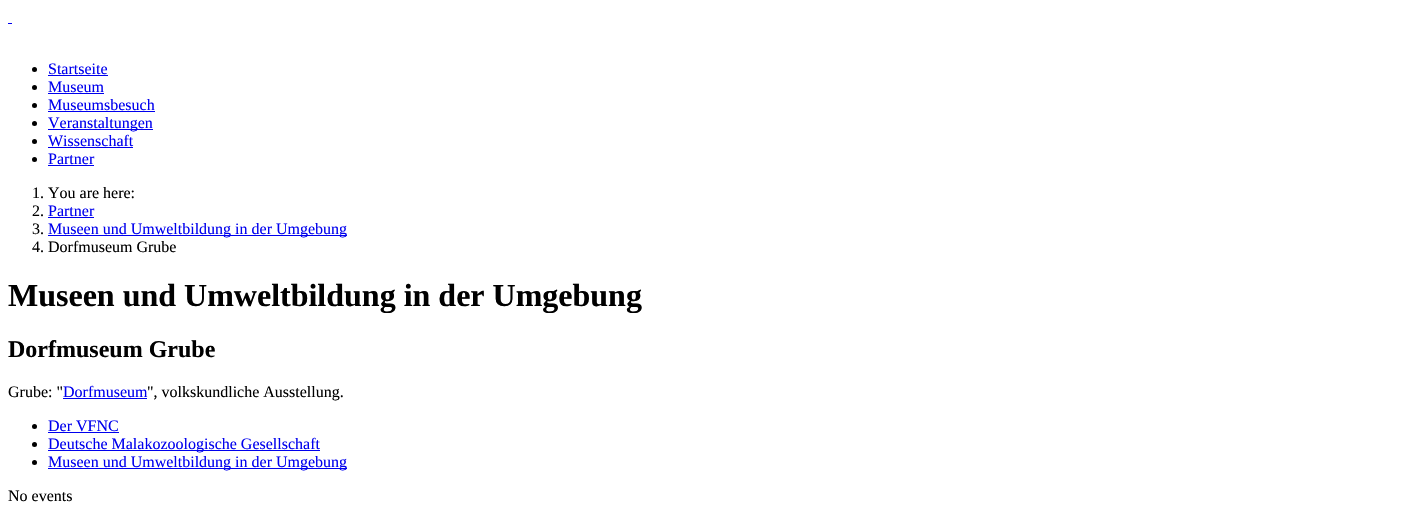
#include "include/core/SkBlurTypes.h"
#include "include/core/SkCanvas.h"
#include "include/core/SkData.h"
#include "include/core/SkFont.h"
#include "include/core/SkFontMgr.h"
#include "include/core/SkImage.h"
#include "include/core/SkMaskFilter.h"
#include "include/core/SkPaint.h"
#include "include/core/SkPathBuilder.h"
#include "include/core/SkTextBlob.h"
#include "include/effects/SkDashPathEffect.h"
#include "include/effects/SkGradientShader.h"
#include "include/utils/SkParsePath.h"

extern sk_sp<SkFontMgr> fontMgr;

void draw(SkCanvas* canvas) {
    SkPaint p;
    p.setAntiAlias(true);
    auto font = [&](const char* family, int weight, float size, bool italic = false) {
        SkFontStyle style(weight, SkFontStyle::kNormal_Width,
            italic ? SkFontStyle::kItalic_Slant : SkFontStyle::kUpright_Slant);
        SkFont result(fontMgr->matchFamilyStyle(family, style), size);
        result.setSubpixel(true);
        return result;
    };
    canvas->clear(0xFFFFFFFF);
    p.setColor(0xFF0000EE);
    canvas->drawRect(SkRect::MakeLTRB(8, 23, 12, 24), p);
    p.setColor(0xFF000000);
    canvas->drawCircle(34.5f, 69.5f, 2.5f, p);
    auto font1 = font("Liberation Serif", 400, 16);
    p.setColor(0xFF0000EE);
    canvas->drawString("Startseite", 48, 74, font1, p);
    canvas->drawRect(SkRect::MakeLTRB(48, 75, 108, 76), p);
    p.setColor(0xFF000000);
    canvas->drawCircle(34.5f, 87.5f, 2.5f, p);
    p.setColor(0xFF0000EE);
    canvas->drawString("Museum", 48, 92, font1, p);
    canvas->drawRect(SkRect::MakeLTRB(48, 93, 104, 94), p);
    p.setColor(0xFF000000);
    canvas->drawCircle(34.5f, 105.5f, 2.5f, p);
    p.setColor(0xFF0000EE);
    canvas->drawString("Museumsbesuch", 48, 110, font1, p);
    canvas->drawRect(SkRect::MakeLTRB(48, 111, 155, 112), p);
    p.setColor(0xFF000000);
    canvas->drawCircle(34.5f, 123.5f, 2.5f, p);
    p.setColor(0xFF0000EE);
    canvas->drawRect(SkRect::MakeLTRB(48, 129, 153, 130), p);
    canvas->drawString("Veranstaltungen", 48, 128, font1, p);
    p.setColor(0xFF000000);
    canvas->drawCircle(34.5f, 141.5f, 2.5f, p);
    p.setColor(0xFF0000EE);
    canvas->drawString("Wissenschaft", 48, 146, font1, p);
    canvas->drawRect(SkRect::MakeLTRB(48, 147, 133, 148), p);
    p.setColor(0xFF000000);
    canvas->drawCircle(34.5f, 159.5f, 2.5f, p);
    p.setColor(0xFF0000EE);
    canvas->drawString("Partner", 48, 164, font1, p);
    canvas->drawRect(SkRect::MakeLTRB(48, 165, 94, 166), p);
    p.setColor(0xFF000000);
    canvas->drawString("1. You are here:", 32, 198, font1, p);
    canvas->drawString("2.", 32, 216, font1, p);
    p.setColor(0xFF0000EE);
    canvas->drawString("Partner", 48, 216, font1, p);
    canvas->drawRect(SkRect::MakeLTRB(48, 217, 94, 218), p);
    p.setColor(0xFF000000);
    canvas->drawString("3.", 32, 234, font1, p);
    p.setColor(0xFF0000EE);
    canvas->drawRect(SkRect::MakeLTRB(48, 235, 347, 236), p);
    canvas->drawString("Museen und Umweltbildung in der Umgebung", 48, 234, font1, p);
    p.setColor(0xFF000000);
    canvas->drawString("4. Dorfmuseum Grube", 32, 252, font1, p);
    auto font2 = font("Liberation Serif", 700, 32);
    canvas->drawString("Museen und Umweltbildung in der Umgebung", 8, 306, font2, p);
    auto font3 = font("Liberation Serif", 700, 24);
    canvas->drawString("Dorfmuseum Grube", 8, 357, font3, p);
    canvas->drawString("Grube: \"", 8, 397, font1, p);
    p.setColor(0xFF0000EE);
    canvas->drawString("Dorfmuseum", 63, 397, font1, p);
    canvas->drawRect(SkRect::MakeLTRB(63, 398, 147, 399), p);
    p.setColor(0xFF000000);
    canvas->drawString("\", volkskundliche Ausstellung.", 147, 397, font1, p);
    canvas->drawCircle(34.5f, 426.5f, 2.5f, p);
    p.setColor(0xFF0000EE);
    canvas->drawString("Der VFNC", 48, 431, font1, p);
    canvas->drawRect(SkRect::MakeLTRB(48, 432, 119, 433), p);
    p.setColor(0xFF000000);
    canvas->drawCircle(34.5f, 444.5f, 2.5f, p);
    p.setColor(0xFF0000EE);
    canvas->drawRect(SkRect::MakeLTRB(48, 450, 320, 451), p);
    canvas->drawString("Deutsche Malakozoologische Gesellschaft", 48, 449, font1, p);
    p.setColor(0xFF000000);
    canvas->drawCircle(34.5f, 462.5f, 2.5f, p);
    p.setColor(0xFF0000EE);
    canvas->drawRect(SkRect::MakeLTRB(48, 468, 347, 469), p);
    canvas->drawString("Museen und Umweltbildung in der Umgebung", 48, 467, font1, p);
    p.setColor(0xFF000000);
    canvas->drawString("No events", 8, 501, font1, p);
}
